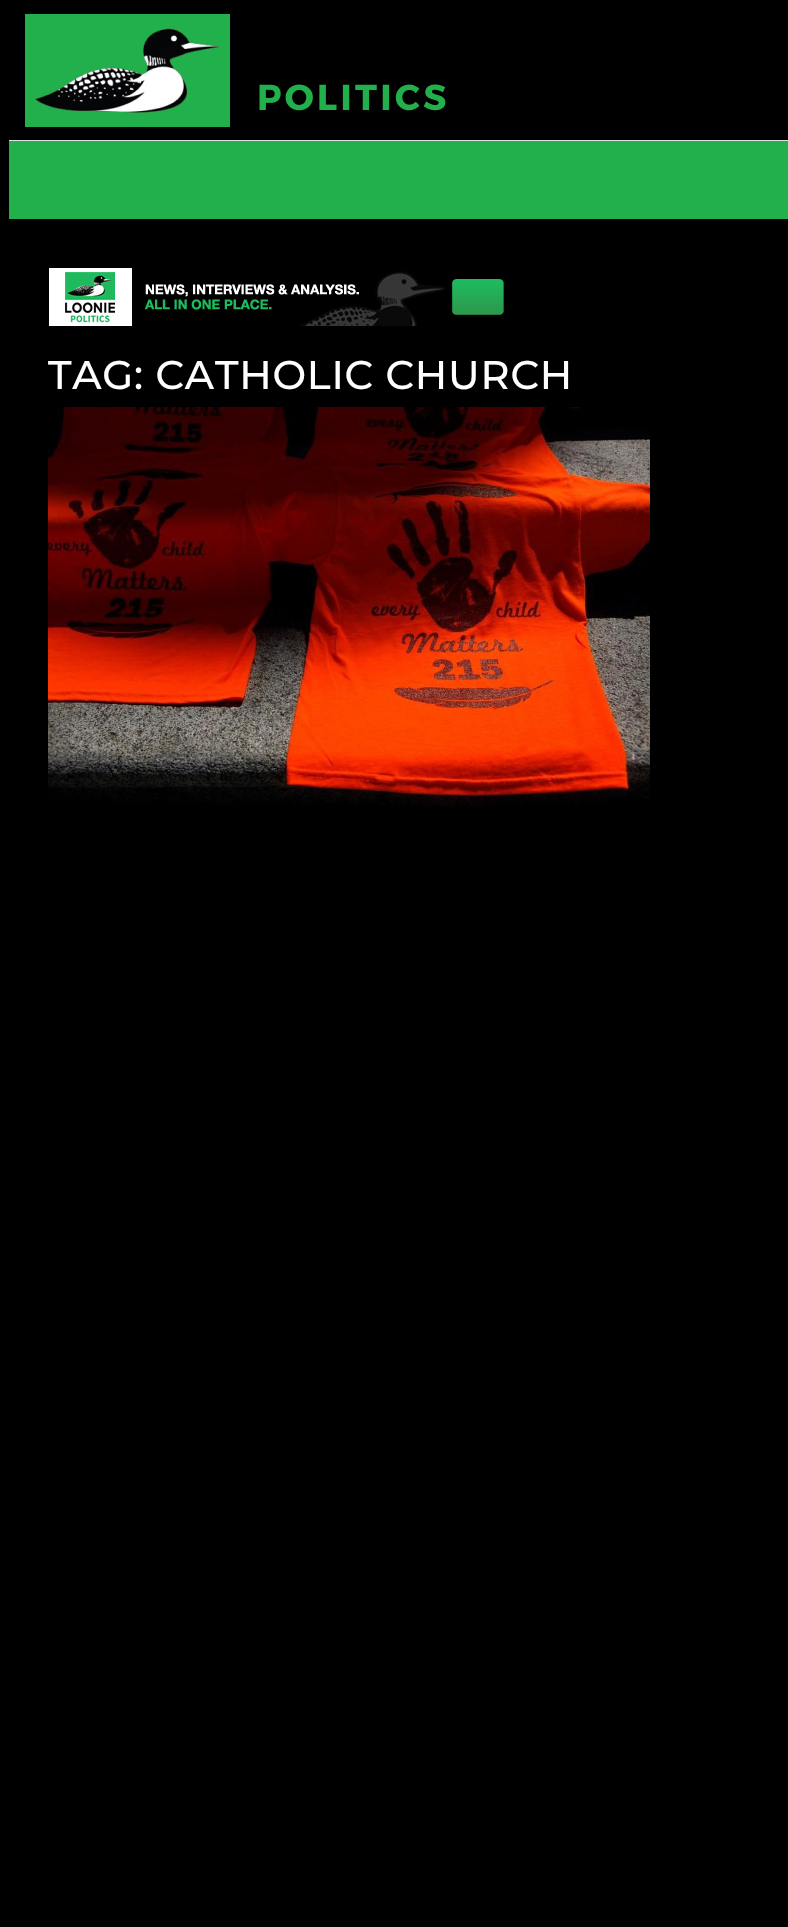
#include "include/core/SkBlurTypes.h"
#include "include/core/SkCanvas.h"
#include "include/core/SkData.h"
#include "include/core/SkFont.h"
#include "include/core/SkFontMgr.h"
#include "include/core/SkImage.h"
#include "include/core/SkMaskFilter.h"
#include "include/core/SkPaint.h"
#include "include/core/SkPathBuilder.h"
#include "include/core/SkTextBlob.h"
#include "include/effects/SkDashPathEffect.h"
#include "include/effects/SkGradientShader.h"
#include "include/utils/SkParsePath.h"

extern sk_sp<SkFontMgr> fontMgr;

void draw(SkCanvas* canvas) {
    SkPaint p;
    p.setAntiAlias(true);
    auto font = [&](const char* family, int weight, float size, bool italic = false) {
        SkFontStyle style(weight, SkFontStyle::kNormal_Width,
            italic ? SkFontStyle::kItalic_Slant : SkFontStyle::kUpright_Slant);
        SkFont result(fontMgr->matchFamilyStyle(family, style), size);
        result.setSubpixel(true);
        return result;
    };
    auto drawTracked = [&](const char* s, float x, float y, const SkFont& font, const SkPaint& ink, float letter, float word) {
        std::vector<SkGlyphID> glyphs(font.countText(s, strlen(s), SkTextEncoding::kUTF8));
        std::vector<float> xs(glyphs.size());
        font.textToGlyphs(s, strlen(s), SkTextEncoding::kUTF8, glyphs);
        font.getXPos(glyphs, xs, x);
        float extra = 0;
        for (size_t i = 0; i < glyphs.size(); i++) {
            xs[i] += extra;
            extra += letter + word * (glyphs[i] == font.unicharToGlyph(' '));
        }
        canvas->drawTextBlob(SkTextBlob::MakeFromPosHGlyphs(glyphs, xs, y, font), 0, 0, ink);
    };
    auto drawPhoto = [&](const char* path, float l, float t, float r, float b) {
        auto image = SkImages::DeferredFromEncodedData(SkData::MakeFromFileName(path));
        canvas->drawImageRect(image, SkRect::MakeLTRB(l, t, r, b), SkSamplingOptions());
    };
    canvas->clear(0xFF000000);
    p.setColor(0xFFDEE2E6);
    canvas->drawRect(SkRect::MakeLTRB(9, 140, 788, 141), p);
    drawPhoto("media/1.png", 25, 14, 446, 127);
    p.setColor(0xFF22B04C);
    canvas->drawRect(SkRect::MakeLTRB(9, 141, 788, 219), p);
    drawPhoto("media/2.png", 49, 268, 504, 326);
    auto font1 = font("Montserrat", 500, 40);
    p.setColor(0xFFFFFFFF);
    drawTracked("TAG: CATHOLIC CHURCH", 48, 389, font1, p, 0.8f, 0);
    drawPhoto("media/3.png", 48, 407, 650, 809);
}
